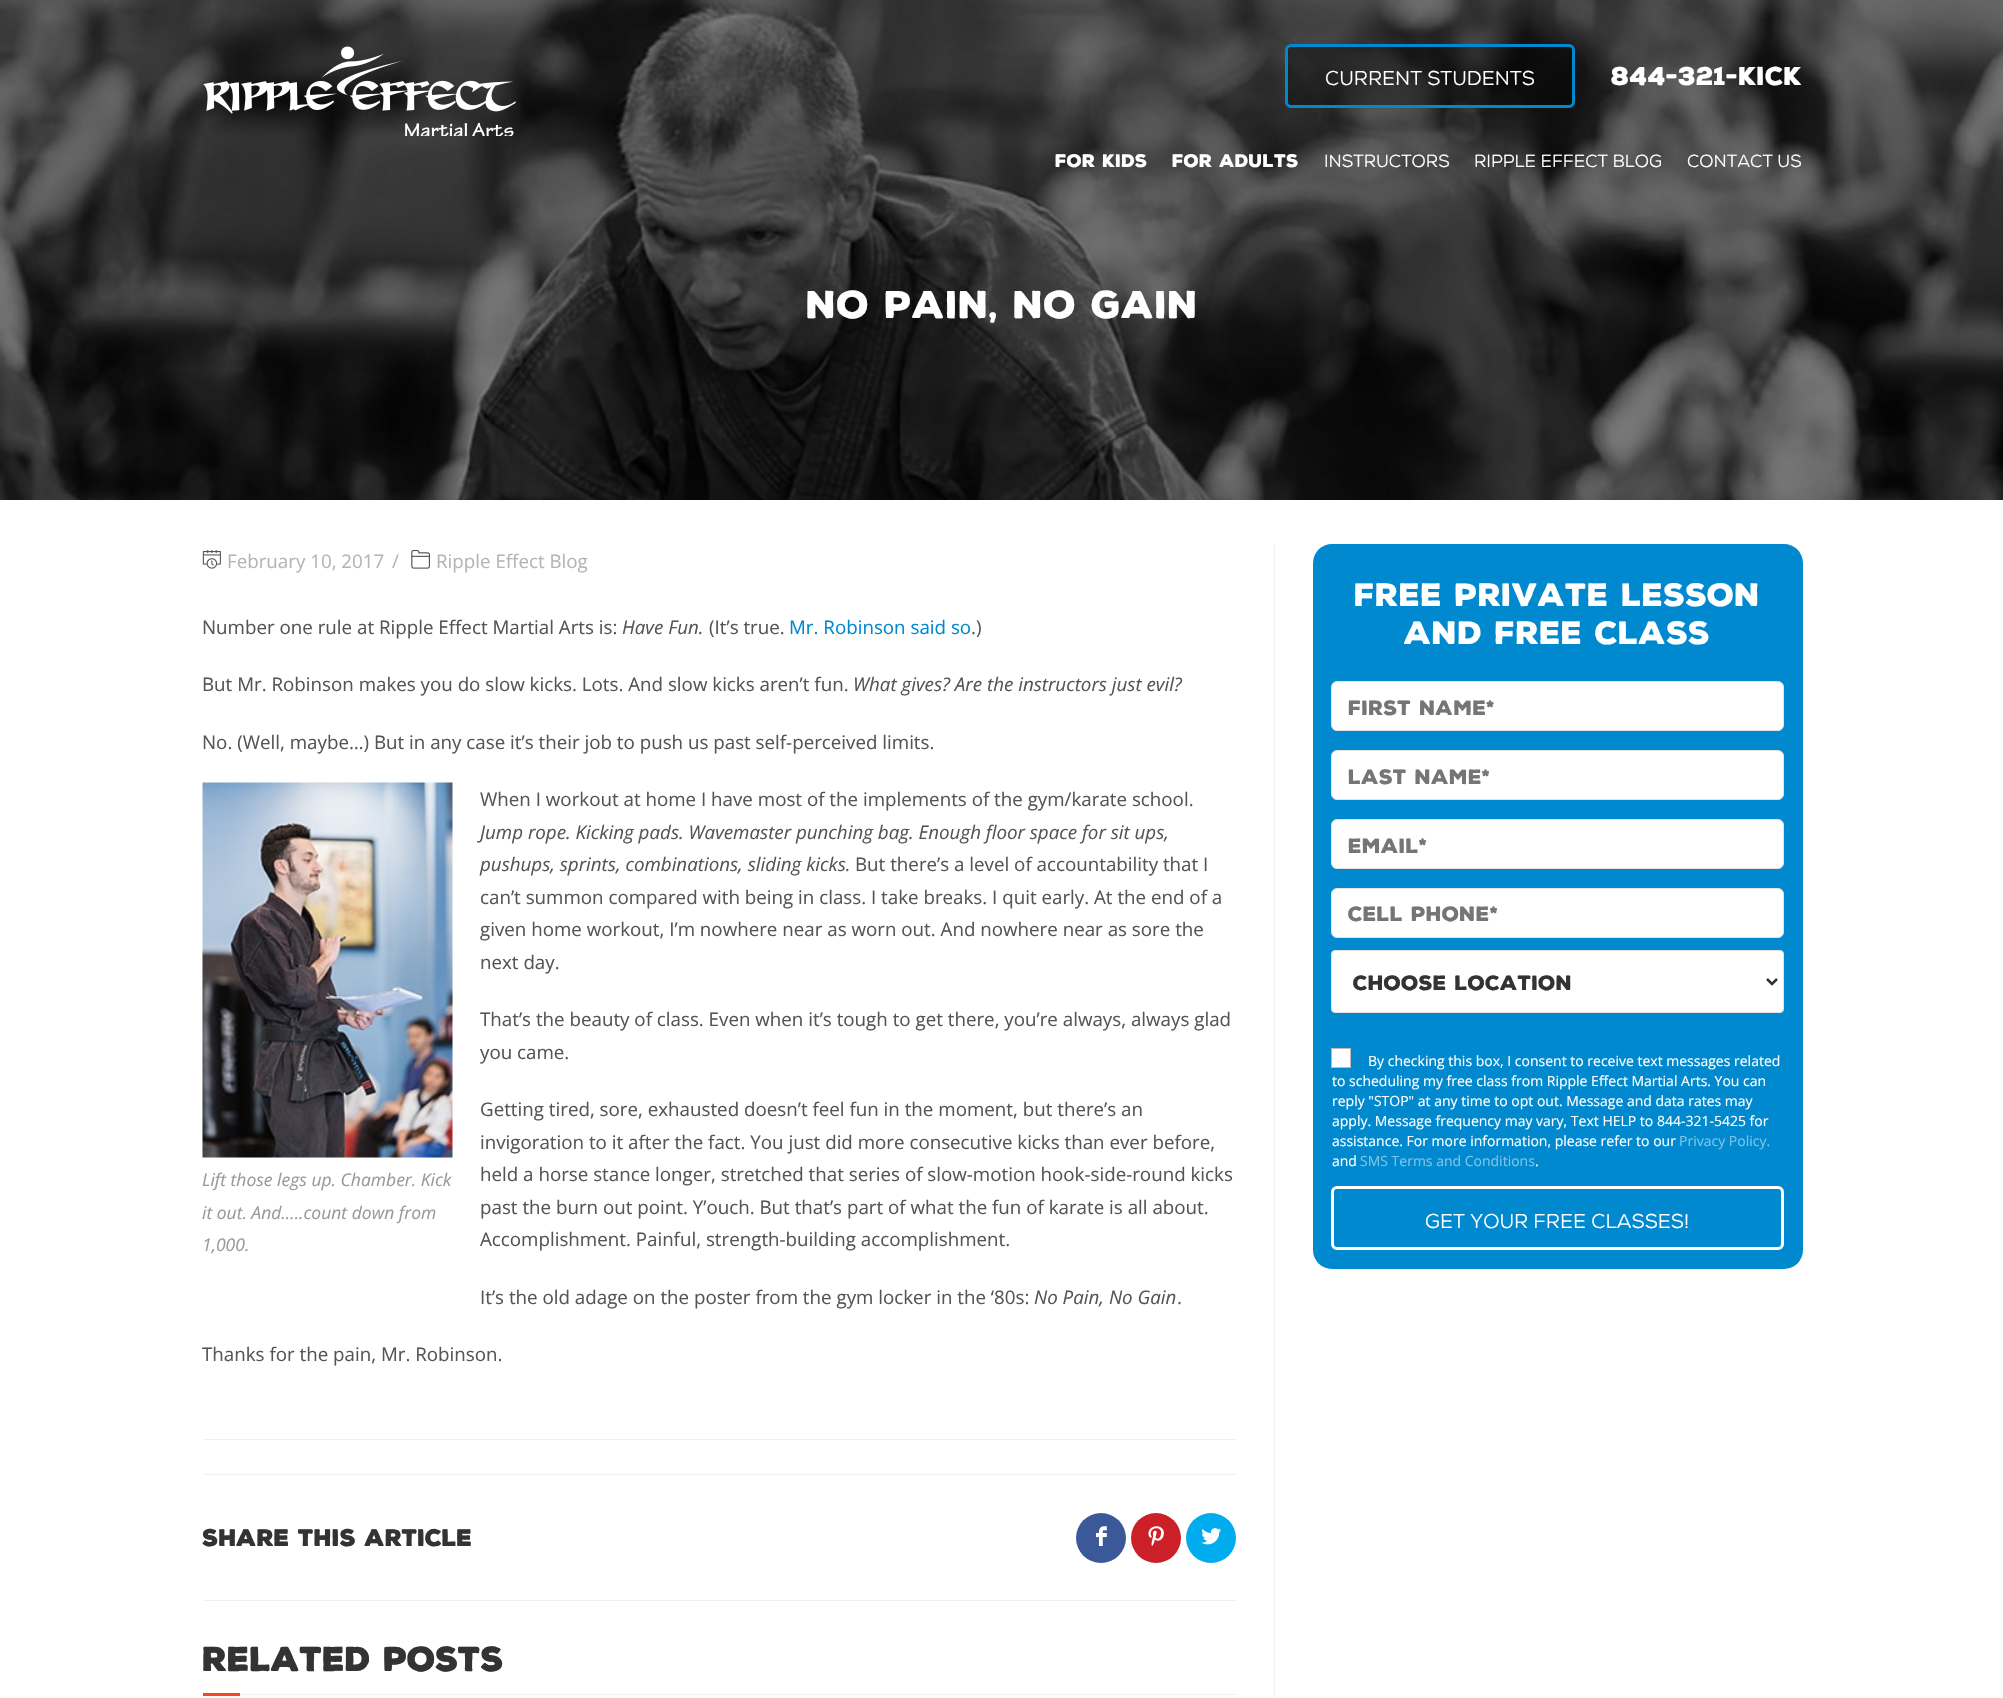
#include "include/core/SkBlurTypes.h"
#include "include/core/SkCanvas.h"
#include "include/core/SkData.h"
#include "include/core/SkFont.h"
#include "include/core/SkFontMgr.h"
#include "include/core/SkImage.h"
#include "include/core/SkMaskFilter.h"
#include "include/core/SkPaint.h"
#include "include/core/SkPathBuilder.h"
#include "include/core/SkTextBlob.h"
#include "include/effects/SkDashPathEffect.h"
#include "include/effects/SkGradientShader.h"
#include "include/utils/SkParsePath.h"

extern sk_sp<SkFontMgr> fontMgr;

void draw(SkCanvas* canvas) {
    SkPaint p;
    p.setAntiAlias(true);
    auto font = [&](const char* family, int weight, float size, bool italic = false) {
        SkFontStyle style(weight, SkFontStyle::kNormal_Width,
            italic ? SkFontStyle::kItalic_Slant : SkFontStyle::kUpright_Slant);
        SkFont result(fontMgr->matchFamilyStyle(family, style), size);
        result.setSubpixel(true);
        return result;
    };
    auto drawPhoto = [&](const char* path, float l, float t, float r, float b) {
        auto image = SkImages::DeferredFromEncodedData(SkData::MakeFromFileName(path));
        canvas->drawImageRect(image, SkRect::MakeLTRB(l, t, r, b), SkSamplingOptions());
    };
    canvas->clear(0xFFFFFFFF);
    drawPhoto("media/2.png", 0, 0, 2003, 500);
    drawPhoto("media/1.png", 203, 46, 516, 136);
    p.setColor(0x66000000);
    canvas->drawRoundRect(SkRect::MakeLTRB(1286.5f, 45.5f, 1573.5f, 106.5f), 4.5f, 4.5f, p);
    p.setStyle(SkPaint::kStroke_Style);
    p.setStrokeWidth(3);
    p.setColor(0xFF0089CF);
    canvas->drawRoundRect(SkRect::MakeLTRB(1286.5f, 45.5f, 1573.5f, 106.5f), 4.5f, 4.5f, p);
    auto font1 = font("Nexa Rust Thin", 400, 20);
    p.setStyle(SkPaint::kFill_Style);
    p.setColor(0xFFFFFFFF);
    canvas->drawString("Current Students", 1325, 85, font1, p);
    auto font2 = font("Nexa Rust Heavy", 400, 25);
    canvas->drawString("844-321-KICK", 1611, 85, font2, p);
    auto font3 = font("Nexa Rust Heavy", 400, 17.5f);
    canvas->drawString("For Kids", 1055, 167, font3, p);
    canvas->drawString("For Adults", 1172, 167, font3, p);
    auto font4 = font("Nexa Rust Thin", 400, 17.5f);
    {
        const struct { const char* s; float x, y; } items[] = {
            {"Instructors", 1324, 167},
            {"Ripple Effect Blog", 1474, 167},
            {"Contact Us", 1687, 167},
        };
        for (auto [s, x, y] : items) {
            canvas->drawString(s, x, y, font4, p);
        }
    }
    auto font5 = font("Nexa Rust Heavy", 400, 37.5f);
    canvas->drawString("No Pain, No Gain", 806, 318, font5, p);
    p.setColor(0xFFF1F1F1);
    canvas->drawRect(SkRect::MakeLTRB(1274, 544, 1275, 1698), p);
    drawPhoto("media/3.png", 202, 550, 221, 569);
    auto font6 = font("Open Sans", 400, 18.75f);
    p.setColor(0xFFB5B5B5);
    canvas->drawString("February 10, 2017", 227, 568, font6, p);
    canvas->drawString("/", 392, 568, font6, p);
    drawPhoto("media/4.png", 411, 549, 430, 569);
    canvas->drawString("Ripple Effect Blog", 436, 568, font6, p);
    p.setColor(0xFF555555);
    canvas->drawString("Number one rule at Ripple Effect Martial Arts is:", 202, 634, font6, p);
    auto font7 = font("Open Sans", 400, 18.75f, true);
    canvas->drawString("Have Fun.", 622, 634, font7, p);
    canvas->drawString("(It’s true.", 709, 634, font6, p);
    p.setColor(0xFF0089CF);
    canvas->drawString("Mr. Robinson said so", 789, 634, font6, p);
    p.setColor(0xFF555555);
    canvas->drawString(".)", 971, 634, font6, p);
    canvas->drawString("But Mr. Robinson makes you do slow kicks. Lots. And slow kicks aren’t fun.", 202, 691, font6, p);
    canvas->drawString("What gives? Are the instructors just evil?", 853, 691, font7, p);
    canvas->drawString("No. (Well, maybe…) But in any case it’s their job to push us past self-perceived limits.", 202, 749, font6, p);
    canvas->drawString("When I workout at home I have most of the implements of the gym/karate school.", 480, 806, font6, p);
    canvas->drawString("Jump rope. Kicking pads. Wavemaster punching bag. Enough floor space for sit ups,", 480, 839, font7, p);
    canvas->drawString("pushups, sprints, combinations, sliding kicks.", 480, 871, font7, p);
    {
        const struct { const char* s; float x, y; } items[] = {
            {"But there’s a level of accountability that I", 855, 871},
            {"can’t summon compared with being in class. I take breaks. I quit early. At the end of a", 480, 904},
            {"given home workout, I’m nowhere near as worn out. And nowhere near as sore the", 480, 936},
            {"next day.", 480, 969},
            {"That’s the beauty of class. Even when it’s tough to get there, you’re always, always glad", 480, 1026},
            {"you came.", 480, 1059},
        };
        for (auto [s, x, y] : items) {
            canvas->drawString(s, x, y, font6, p);
        }
    }
    drawPhoto("media/5.png", 202, 782, 453, 1158);
    auto font8 = font("Open Sans", 400, 17.5f, true);
    p.setColor(0xFF999999);
    {
        const struct { const char* s; float x, y; } items[] = {
            {"Lift those legs up. Chamber. Kick", 202, 1186},
            {"it out. And…..count down from", 202, 1219},
            {"1,000.", 202, 1251},
        };
        for (auto [s, x, y] : items) {
            canvas->drawString(s, x, y, font8, p);
        }
    }
    p.setColor(0xFF555555);
    {
        const struct { const char* s; float x, y; } items[] = {
            {"Getting tired, sore, exhausted doesn’t feel fun in the moment, but there’s an", 480, 1116},
            {"invigoration to it after the fact. You just did more consecutive kicks than ever before,", 480, 1149},
            {"held a horse stance longer, stretched that series of slow-motion hook-side-round kicks", 480, 1181},
            {"past the burn out point. Y’ouch. But that’s part of what the fun of karate is all about.", 480, 1214},
            {"Accomplishment. Painful, strength-building accomplishment.", 480, 1246},
            {"It’s the old adage on the poster from the gym locker in the ‘80s:", 480, 1304},
        };
        for (auto [s, x, y] : items) {
            canvas->drawString(s, x, y, font6, p);
        }
    }
    canvas->drawString("No Pain, No Gain", 1034, 1304, font7, p);
    canvas->drawString(".", 1177, 1304, font6, p);
    canvas->drawString("Thanks for the pain, Mr. Robinson.", 202, 1361, font6, p);
    p.setColor(0xFFF1F1F1);
    canvas->drawRect(SkRect::MakeLTRB(203, 1439, 1236, 1440), p);
    canvas->drawRect(SkRect::MakeLTRB(203, 1474, 1236, 1475), p);
    auto font9 = font("Nexa Rust Heavy", 700, 22.5f);
    p.setColor(0xFF333333);
    canvas->drawString("SHARE THIS ARTICLE", 202, 1546, font9, p);
    p.setColor(0xFF3B5998);
    canvas->drawCircle(1101, 1538, 25, p);
    drawPhoto("media/6.png", 1096, 1526, 1107, 1546);
    p.setColor(0xFFCB2027);
    canvas->drawCircle(1156, 1538, 25, p);
    drawPhoto("media/7.png", 1148, 1526, 1164, 1546);
    p.setColor(0xFF00ACED);
    canvas->drawCircle(1211, 1538, 25, p);
    drawPhoto("media/8.png", 1201, 1528, 1221, 1545);
    p.setColor(0xFFF1F1F1);
    canvas->drawRect(SkRect::MakeLTRB(203, 1600, 1236, 1601), p);
    auto font10 = font("Nexa Rust Heavy", 700, 32.5f);
    p.setColor(0xFF333333);
    canvas->drawString("Related Posts", 202, 1671, font10, p);
    p.setColor(0xFFF04923);
    canvas->drawRect(SkRect::MakeLTRB(203, 1693, 240, 1696), p);
    p.setColor(0xFFF1F1F1);
    canvas->drawRect(SkRect::MakeLTRB(240, 1694, 1236, 1695), p);
    p.setColor(0xFF0089CF);
    canvas->drawRoundRect(SkRect::MakeLTRB(1313, 544, 1803, 1269), 19, 19, p);
    auto font11 = font("Nexa Rust Heavy", 400, 31.25f);
    p.setColor(0xFFFFFFFF);
    canvas->drawString("Free Private Lesson", 1354, 606, font11, p);
    canvas->drawString("and Free Class", 1404, 644, font11, p);
    canvas->drawRoundRect(SkRect::MakeLTRB(1331.5f, 681.5f, 1783.5f, 730.5f), 5.5f, 5.5f, p);
    p.setStyle(SkPaint::kStroke_Style);
    p.setStrokeWidth(1);
    p.setColor(0xFFE3E3E3);
    canvas->drawRoundRect(SkRect::MakeLTRB(1331.5f, 681.5f, 1783.5f, 730.5f), 5.5f, 5.5f, p);
    auto font12 = font("Nexa Rust Heavy", 400, 20);
    p.setStyle(SkPaint::kFill_Style);
    p.setColor(0xFF757575);
    canvas->drawString("First Name*", 1348, 715, font12, p);
    p.setColor(0xFFFFFFFF);
    canvas->drawRoundRect(SkRect::MakeLTRB(1331.5f, 750.5f, 1783.5f, 799.5f), 5.5f, 5.5f, p);
    p.setStyle(SkPaint::kStroke_Style);
    p.setColor(0xFFE3E3E3);
    canvas->drawRoundRect(SkRect::MakeLTRB(1331.5f, 750.5f, 1783.5f, 799.5f), 5.5f, 5.5f, p);
    p.setStyle(SkPaint::kFill_Style);
    p.setColor(0xFF757575);
    canvas->drawString("Last Name*", 1348, 784, font12, p);
    p.setColor(0xFFFFFFFF);
    canvas->drawRoundRect(SkRect::MakeLTRB(1331.5f, 819.5f, 1783.5f, 868.5f), 5.5f, 5.5f, p);
    p.setStyle(SkPaint::kStroke_Style);
    p.setColor(0xFFE3E3E3);
    canvas->drawRoundRect(SkRect::MakeLTRB(1331.5f, 819.5f, 1783.5f, 868.5f), 5.5f, 5.5f, p);
    p.setStyle(SkPaint::kFill_Style);
    p.setColor(0xFF757575);
    canvas->drawString("Email*", 1348, 853, font12, p);
    p.setColor(0xFFFFFFFF);
    canvas->drawRoundRect(SkRect::MakeLTRB(1331.5f, 888.5f, 1783.5f, 937.5f), 5.5f, 5.5f, p);
    p.setStyle(SkPaint::kStroke_Style);
    p.setColor(0xFFE3E3E3);
    canvas->drawRoundRect(SkRect::MakeLTRB(1331.5f, 888.5f, 1783.5f, 937.5f), 5.5f, 5.5f, p);
    p.setStyle(SkPaint::kFill_Style);
    p.setColor(0xFF757575);
    canvas->drawString("Cell Phone*", 1348, 921, font12, p);
    p.setColor(0xFFFFFFFF);
    canvas->drawRoundRect(SkRect::MakeLTRB(1331.5f, 950.5f, 1783.5f, 1012.5f), 3.5f, 3.5f, p);
    p.setStyle(SkPaint::kStroke_Style);
    p.setColor(0xFFE3E3E3);
    canvas->drawRoundRect(SkRect::MakeLTRB(1331.5f, 950.5f, 1783.5f, 1012.5f), 3.5f, 3.5f, p);
    p.setStrokeWidth(2.5f);
    p.setColor(0xFF313133);
    canvas->drawPath(SkPathBuilder().moveTo(1767, 979).lineTo(1772, 984).lineTo(1777, 979).detach(), p);
    p.setStyle(SkPaint::kFill_Style);
    p.setColor(0xFF333333);
    canvas->drawString("Choose Location", 1353, 990, font12, p);
    p.setColor(0xFFFFFFFF);
    canvas->drawRect(SkRect::MakeLTRB(1331.5f, 1048.5f, 1350.5f, 1067.5f), p);
    p.setStyle(SkPaint::kStroke_Style);
    p.setStrokeWidth(1);
    p.setColor(0xFFBBBBBB);
    canvas->drawRect(SkRect::MakeLTRB(1331.5f, 1048.5f, 1350.5f, 1067.5f), p);
    auto font13 = font("Open Sans", 400, 14);
    p.setStyle(SkPaint::kFill_Style);
    p.setColor(0xFFFFFFFF);
    {
        const struct { const char* s; float x, y; } items[] = {
            {"By checking this box, I consent to receive text messages related", 1368, 1066},
            {"to scheduling my free class from Ripple Effect Martial Arts. You can", 1332, 1086},
            {"reply \"STOP\" at any time to opt out. Message and data rates may", 1332, 1106},
            {"apply. Message frequency may vary, Text HELP to 844-321-5425 for", 1332, 1126},
            {"assistance. For more information, please refer to our", 1332, 1146},
        };
        for (auto [s, x, y] : items) {
            canvas->drawString(s, x, y, font13, p);
        }
    }
    p.setColor(0xFF7FC4E7);
    canvas->drawString("Privacy Policy.", 1679, 1146, font13, p);
    p.setColor(0xFFFFFFFF);
    canvas->drawString("and", 1332, 1166, font13, p);
    p.setColor(0xFF7FC4E7);
    canvas->drawString("SMS Terms and Conditions", 1360, 1166, font13, p);
    p.setColor(0xFFFFFFFF);
    canvas->drawString(".", 1535, 1166, font13, p);
    p.setStyle(SkPaint::kStroke_Style);
    p.setStrokeWidth(3);
    canvas->drawRoundRect(SkRect::MakeLTRB(1332.5f, 1187.5f, 1782.5f, 1248.5f), 4.5f, 4.5f, p);
    p.setStyle(SkPaint::kFill_Style);
    canvas->drawString("Get Your Free Classes!", 1425, 1228, font1, p);
}
